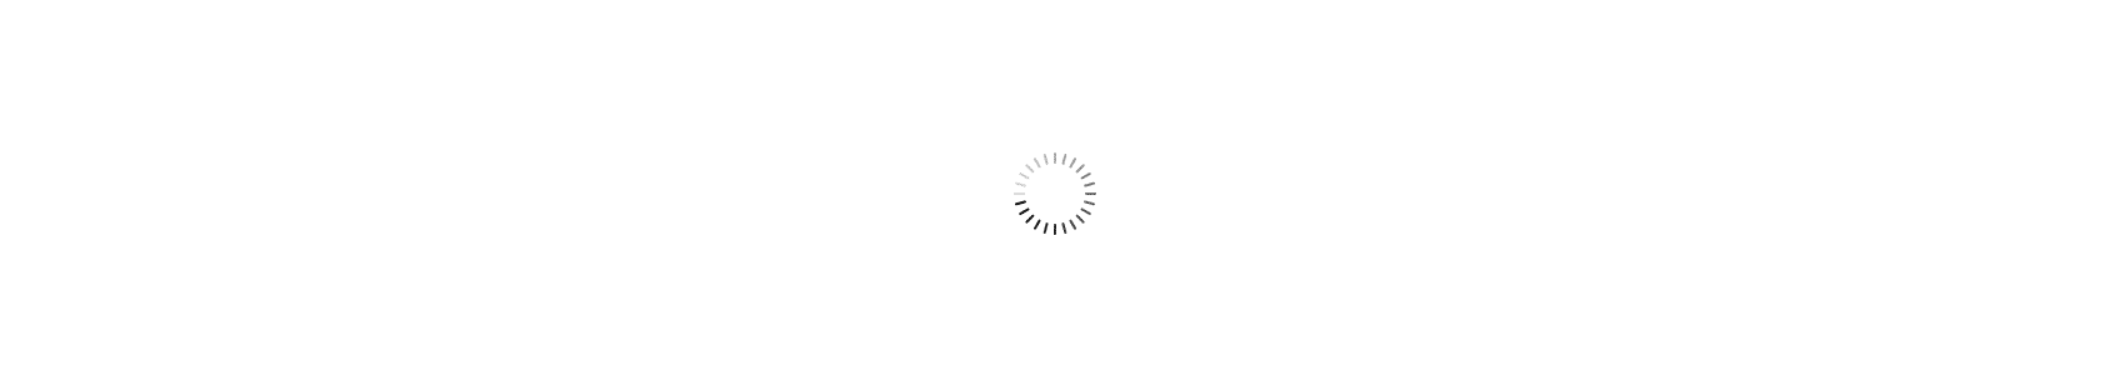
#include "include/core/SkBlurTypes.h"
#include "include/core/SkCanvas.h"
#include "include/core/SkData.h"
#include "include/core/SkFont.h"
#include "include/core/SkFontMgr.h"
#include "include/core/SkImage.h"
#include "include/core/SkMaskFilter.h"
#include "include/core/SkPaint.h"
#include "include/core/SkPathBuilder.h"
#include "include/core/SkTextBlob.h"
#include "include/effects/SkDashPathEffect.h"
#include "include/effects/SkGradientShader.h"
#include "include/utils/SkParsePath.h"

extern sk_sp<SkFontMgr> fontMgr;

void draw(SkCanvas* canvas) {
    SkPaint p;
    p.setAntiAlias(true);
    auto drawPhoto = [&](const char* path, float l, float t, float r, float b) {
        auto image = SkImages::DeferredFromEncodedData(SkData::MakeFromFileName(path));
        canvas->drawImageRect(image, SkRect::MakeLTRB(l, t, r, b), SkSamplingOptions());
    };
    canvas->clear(0xFFFFFFFF);
    drawPhoto("media/1.png", 1013, 152, 1097, 235);
}
